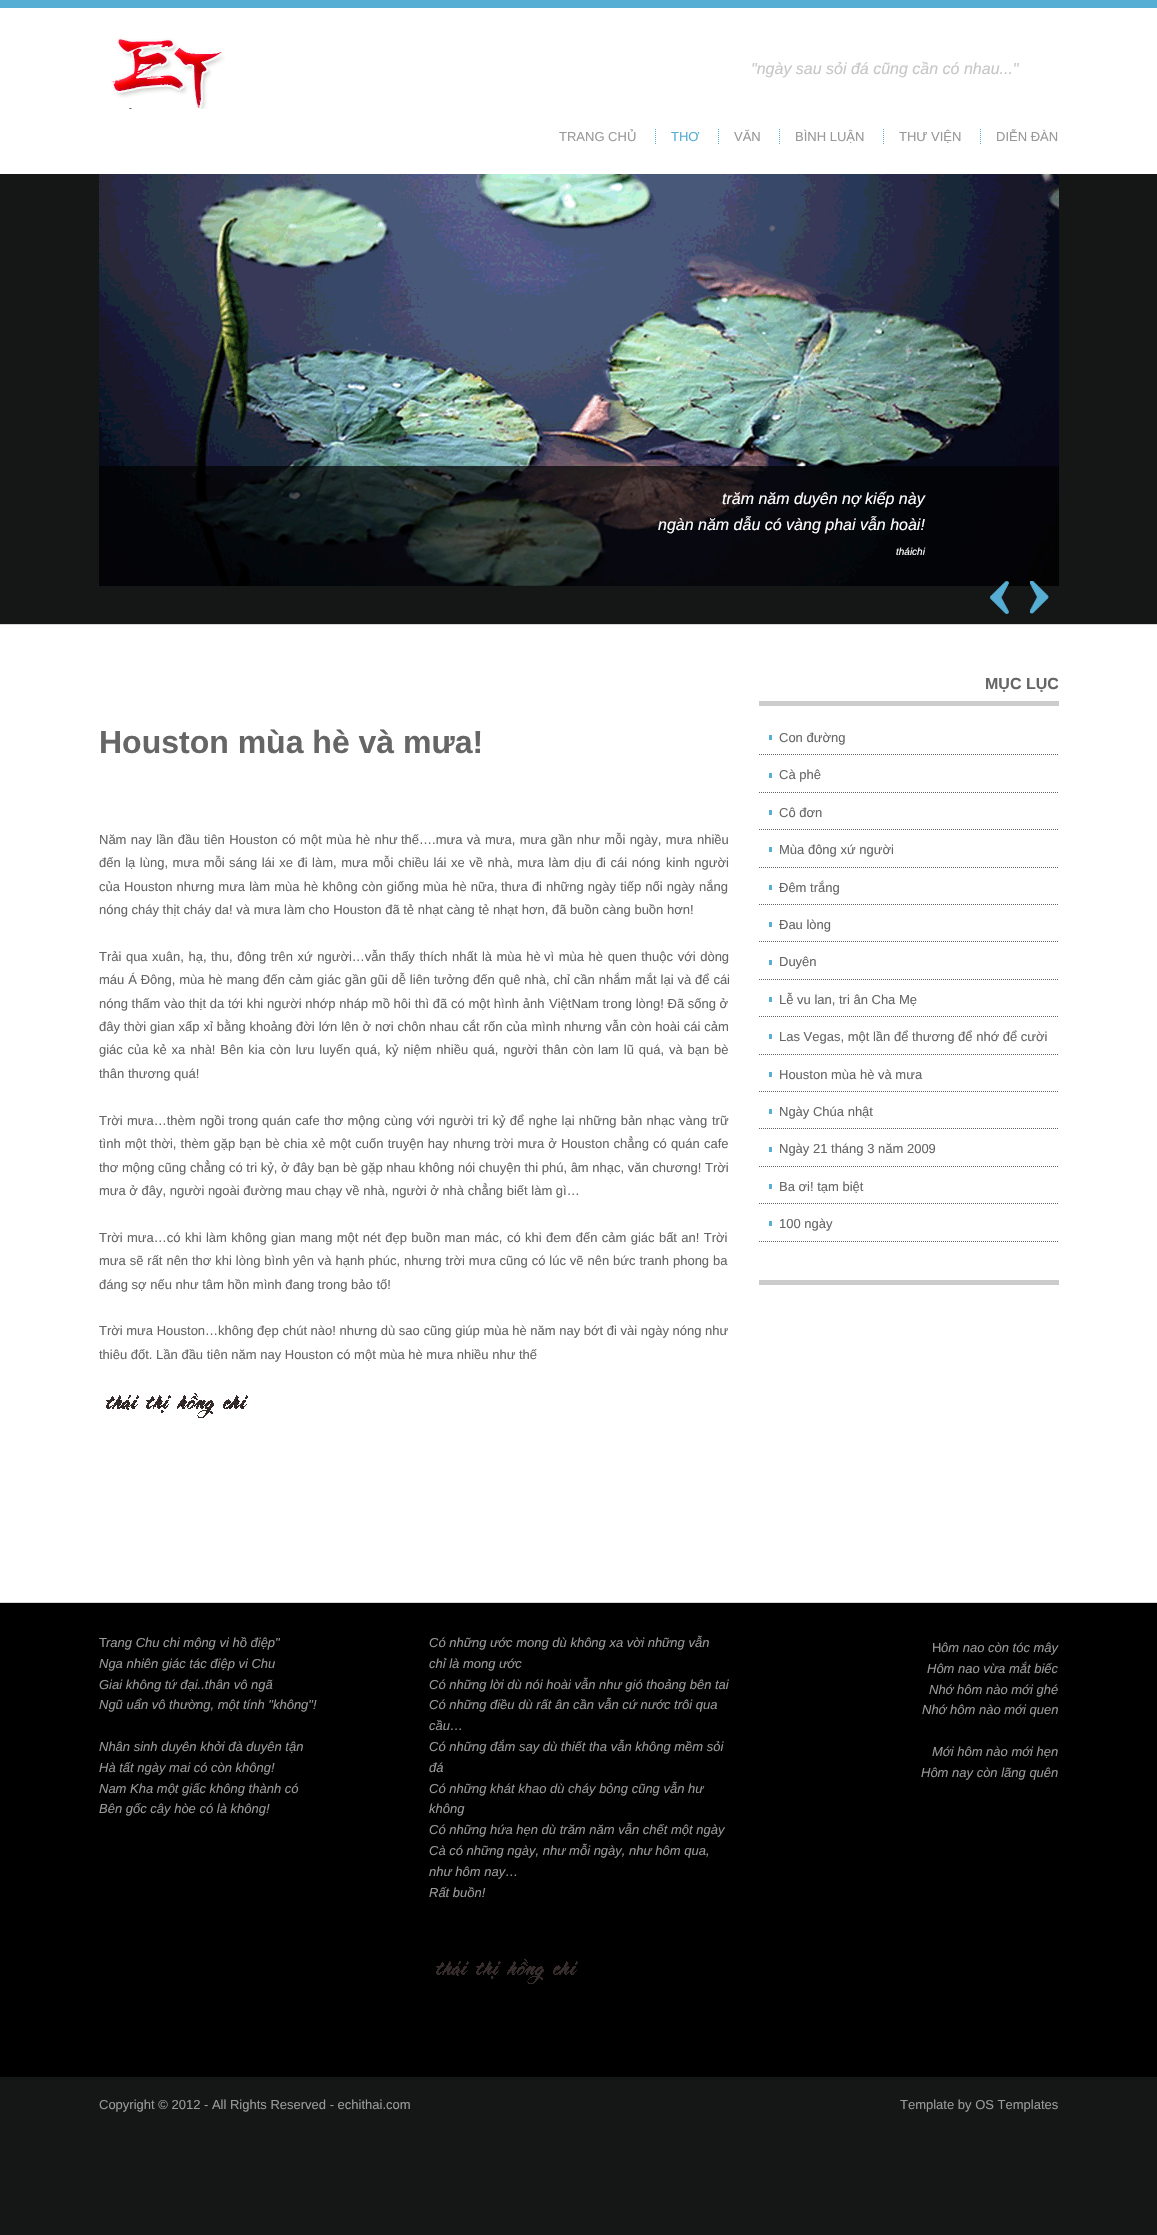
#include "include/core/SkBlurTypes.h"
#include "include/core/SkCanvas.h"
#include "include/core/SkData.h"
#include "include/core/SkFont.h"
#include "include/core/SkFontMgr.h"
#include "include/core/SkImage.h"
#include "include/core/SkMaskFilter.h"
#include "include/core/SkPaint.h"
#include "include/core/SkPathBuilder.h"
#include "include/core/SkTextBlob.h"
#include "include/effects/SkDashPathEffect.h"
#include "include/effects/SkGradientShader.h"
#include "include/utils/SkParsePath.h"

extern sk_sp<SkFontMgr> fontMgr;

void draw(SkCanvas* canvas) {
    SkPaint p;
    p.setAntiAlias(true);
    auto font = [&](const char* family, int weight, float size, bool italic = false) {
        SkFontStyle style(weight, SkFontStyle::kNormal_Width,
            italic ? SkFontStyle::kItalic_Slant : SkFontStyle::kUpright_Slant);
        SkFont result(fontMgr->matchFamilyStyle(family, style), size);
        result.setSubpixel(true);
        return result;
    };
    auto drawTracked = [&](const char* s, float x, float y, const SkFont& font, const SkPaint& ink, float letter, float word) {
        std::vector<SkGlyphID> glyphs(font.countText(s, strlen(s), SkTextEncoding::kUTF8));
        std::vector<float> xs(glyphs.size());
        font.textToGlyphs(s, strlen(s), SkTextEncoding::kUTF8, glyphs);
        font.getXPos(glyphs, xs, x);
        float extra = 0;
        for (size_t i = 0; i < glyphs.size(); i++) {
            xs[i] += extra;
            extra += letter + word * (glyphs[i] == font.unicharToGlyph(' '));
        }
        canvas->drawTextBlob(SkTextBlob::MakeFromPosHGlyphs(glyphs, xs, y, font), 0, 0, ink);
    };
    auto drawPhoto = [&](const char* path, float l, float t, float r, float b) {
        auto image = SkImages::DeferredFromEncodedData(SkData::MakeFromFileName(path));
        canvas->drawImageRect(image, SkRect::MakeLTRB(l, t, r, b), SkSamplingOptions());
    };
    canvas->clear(0xFF151717);
    p.setColor(0xFFFFFFFF);
    canvas->drawRect(SkRect::MakeLTRB(0, 8, 1157, 174), p);
    p.setColor(0xFF56AED4);
    canvas->drawRect(SkRect::MakeLTRB(0, 0, 1157, 8), p);
    drawPhoto("media/1.png", 111, 37, 225, 109);
    auto font1 = font("Liberation Sans", 400, 16, true);
    p.setColor(0xFFC7C7C7);
    canvas->drawString("\"ngày sau sỏi đá cũng cần có nhau...\"", 751, 74, font1, p);
    auto font2 = font("Liberation Sans", 400, 13);
    p.setColor(0xFF999999);
    canvas->drawString("TRANG CHỦ", 559, 141, font2, p);
    p.setStyle(SkPaint::kStroke_Style);
    p.setStrokeWidth(1);
    p.setColor(0xFF56AED4);
    p.setPathEffect(SkDashPathEffect::Make({{1, 1}}, 0));
    canvas->drawPath(SkPathBuilder().moveTo(655.5f, 129).lineTo(655.5f, 144).detach(), p);
    p.setPathEffect(nullptr);
    p.setStyle(SkPaint::kFill_Style);
    canvas->drawString("THƠ", 671, 141, font2, p);
    p.setStyle(SkPaint::kStroke_Style);
    p.setPathEffect(SkDashPathEffect::Make({{1, 1}}, 0));
    canvas->drawPath(SkPathBuilder().moveTo(718.5f, 129).lineTo(718.5f, 144).detach(), p);
    p.setPathEffect(nullptr);
    p.setStyle(SkPaint::kFill_Style);
    p.setColor(0xFF999999);
    canvas->drawString("VĂN", 734, 141, font2, p);
    p.setStyle(SkPaint::kStroke_Style);
    p.setColor(0xFF56AED4);
    p.setPathEffect(SkDashPathEffect::Make({{1, 1}}, 0));
    canvas->drawPath(SkPathBuilder().moveTo(779.5f, 129).lineTo(779.5f, 144).detach(), p);
    p.setPathEffect(nullptr);
    p.setStyle(SkPaint::kFill_Style);
    p.setColor(0xFF999999);
    canvas->drawString("BÌNH LUẬN", 795, 141, font2, p);
    p.setStyle(SkPaint::kStroke_Style);
    p.setColor(0xFF56AED4);
    p.setPathEffect(SkDashPathEffect::Make({{1, 1}}, 0));
    canvas->drawPath(SkPathBuilder().moveTo(883.5f, 129).lineTo(883.5f, 144).detach(), p);
    p.setPathEffect(nullptr);
    p.setStyle(SkPaint::kFill_Style);
    p.setColor(0xFF999999);
    canvas->drawString("THƯ VIỆN", 899, 141, font2, p);
    p.setStyle(SkPaint::kStroke_Style);
    p.setColor(0xFF56AED4);
    p.setPathEffect(SkDashPathEffect::Make({{1, 1}}, 0));
    canvas->drawPath(SkPathBuilder().moveTo(980.5f, 129).lineTo(980.5f, 144).detach(), p);
    p.setPathEffect(nullptr);
    p.setStyle(SkPaint::kFill_Style);
    p.setColor(0xFF999999);
    canvas->drawString("DIỄN ĐÀN", 996, 141, font2, p);
    drawPhoto("media/2.png", 99, 174, 1059, 586);
    p.setColor(0xB3000000);
    canvas->drawRect(SkRect::MakeLTRB(99, 466, 1059, 586), p);
    p.setColor(0xFFFFFFFF);
    canvas->drawString("trăm năm duyên nợ kiếp này", 722, 504, font1, p);
    canvas->drawString("ngàn năm dẫu có vàng phai vẫn hoài!", 658, 530, font1, p);
    auto font3 = font("Liberation Sans", 400, 10, true);
    canvas->drawString("tháichi", 896, 555, font3, p);
    drawPhoto("media/3.png", 990, 581, 1009, 614);
    drawPhoto("media/4.png", 1030, 581, 1049, 614);
    canvas->drawRect(SkRect::MakeLTRB(0, 625, 1157, 1602), p);
    p.setColor(0xFFD8D8D8);
    canvas->drawRect(SkRect::MakeLTRB(0, 624, 1157, 625), p);
    auto font4 = font("Liberation Sans", 700, 32);
    p.setColor(0xFF666666);
    canvas->drawString("Houston mùa hè và mưa!", 99, 753, font4, p);
    drawTracked("Năm nay lần đầu tiên Houston có một mùa hè như", 99, 844, font2, p, 0, 0.75f);
    drawTracked("thế….mưa và mưa, mưa gần như mỗi ngày, mưa nhiều", 401, 844, font2, p, 0, 0.75f);
    {
        const struct { const char* s; float x, y; } items[] = {
            {"đến lạ lùng, mưa mỗi", 99, 867},
            {"sáng lái xe đi làm, mưa mỗi chiều lái xe về nhà, mưa làm dịu đi cái nóng", 229, 867},
            {"kinh người", 666, 867},
        };
        for (auto [s, x, y] : items) {
            drawTracked(s, x, y, font2, p, 0, 0.9f);
        }
    }
    drawTracked("của Houston nhưng mưa làm mùa hè không còn giống mùa hè nữa,", 99, 891, font2, p, 0, 0.5f);
    drawTracked("thưa đi những ngày tiếp nối ngày nắng", 501, 891, font2, p, 0, 0.5f);
    canvas->drawString("nóng cháy thịt cháy da! và mưa làm cho Houston đã tẻ nhạt càng tẻ nhạt hơn, đã buồn càng buồn hơn!", 99, 914, font2, p);
    drawTracked("Trải qua xuân, hạ, thu, đông trên xứ người…vẫn thấy thích nhất là mùa hè", 99, 961, font2, p, 0, 0.9f);
    drawTracked("vì mùa hè quen thuộc với dòng", 544, 961, font2, p, 0, 1);
    drawTracked("máu Á Đông, mùa hè mang đến cảm giác gần gũi dễ liên tưởng đến quê nhà, chỉ cần nhắm mắt lại và để cái", 99, 984, font2, p, 0, 0.25f);
    canvas->drawString("nóng thấm", 99, 1008, font2, p);
    drawTracked("vào thịt da tới khi người nhớp nháp mồ hôi thì đã có một hình ảnh", 164, 1008, font2, p, 0, 0.1f);
    canvas->drawString("ViệtNam trong lòng! Đã sống ở", 549, 1008, font2, p);
    drawTracked("đây thời gian xấp xỉ bằng khoảng đời lớn lên ở nơi chôn nhau cắt rốn của mình nhưng vẫn còn hoài cái cảm", 99, 1031, font2, p, 0, 0.3f);
    drawTracked("giác của", 99, 1054, font2, p, 0, 1);
    drawTracked("kẻ xa nhà! Bên kia còn lưu luyến quá, kỷ niệm nhiều quá, người thân còn", 153, 1054, font2, p, 0, 1.25f);
    drawTracked("lam lũ quá, và bạn bè", 598, 1054, font2, p, 0, 1.25f);
    canvas->drawString("thân thương quá!", 99, 1078, font2, p);
    drawTracked("Trời mưa…thèm ngồi trong", 99, 1125, font2, p, 0, 0.6f);
    drawTracked("quán cafe thơ mộng cùng với người tri kỷ để nghe lại những bản nhạc vàng", 262, 1125, font2, p, 0, 0.6f);
    canvas->drawString("trữ", 712, 1125, font2, p);
    drawTracked("tình một thời, thèm gặp bạn bè chia xẻ một cuốn truyện hay nhưng", 99, 1148, font2, p, 0, 0.5f);
    drawTracked("trời mưa ở Houston chẳng có quán cafe", 494, 1148, font2, p, 0, 0.5f);
    canvas->drawString("thơ mộng cũng chẳng có tri kỷ, ở đây bạn bè gặp nhau không nói chuyện thi phú, âm nhạc, văn chương! Trời", 99, 1172, font2, p);
    canvas->drawString("mưa ở đây, người ngoài đường mau chạy về nhà, người ở nhà chẳng biết làm gì…", 99, 1195, font2, p);
    drawTracked("Trời mưa…có khi làm không gian mang một nét đẹp buồn man mác,", 99, 1242, font2, p, 0, 0.75f);
    drawTracked("có khi đem đến cảm giác bất an! Trời", 507, 1242, font2, p, 0, 0.75f);
    drawTracked("mưa sẽ rất nên thơ khi lòng bình", 99, 1265, font2, p, 0, 0.3f);
    drawTracked("yên và hạnh phúc, nhưng trời mưa cũng có lúc vẽ nên bức tranh phong ba", 293, 1265, font2, p, 0, 0.3f);
    {
        const struct { const char* s; float x, y; } items[] = {
            {"đáng sợ nếu như tâm hồn mình đang trong bảo tố!", 99, 1289},
            {"Trời mưa Houston…không đẹp chút nào! nhưng dù sao cũng giúp mùa hè năm nay bớt đi vài ngày nóng như", 99, 1335},
            {"thiêu đốt. Lần đầu tiên năm nay Houston có một mùa hè mưa nhiều như thế", 99, 1359},
        };
        for (auto [s, x, y] : items) {
            canvas->drawString(s, x, y, font2, p);
        }
    }
    drawPhoto("media/5.png", 106, 1393, 248, 1418);
    p.setColor(0xFFCCCCCC);
    canvas->drawRect(SkRect::MakeLTRB(759, 701, 1059, 706), p);
    auto font5 = font("Liberation Sans", 700, 16);
    p.setColor(0xFF666666);
    canvas->drawString("MỤC LỤC", 985, 689, font5, p);
    p.setColor(0xFF56AED4);
    canvas->drawRect(SkRect::MakeLTRB(769, 735, 772, 740), p);
    p.setStyle(SkPaint::kStroke_Style);
    p.setColor(0xFF666666);
    p.setPathEffect(SkDashPathEffect::Make({{1, 1}}, 0));
    canvas->drawPath(SkPathBuilder().moveTo(759, 754.5f).lineTo(1059, 754.5f).detach(), p);
    p.setPathEffect(nullptr);
    p.setStyle(SkPaint::kFill_Style);
    canvas->drawString("Con đường", 779, 742, font2, p);
    p.setColor(0xFF56AED4);
    canvas->drawRect(SkRect::MakeLTRB(769, 773, 772, 778), p);
    p.setStyle(SkPaint::kStroke_Style);
    p.setColor(0xFF666666);
    p.setPathEffect(SkDashPathEffect::Make({{1, 1}}, 0));
    canvas->drawPath(SkPathBuilder().moveTo(759, 792.5f).lineTo(1059, 792.5f).detach(), p);
    p.setPathEffect(nullptr);
    p.setStyle(SkPaint::kFill_Style);
    canvas->drawString("Cà phê", 779, 779, font2, p);
    p.setColor(0xFF56AED4);
    canvas->drawRect(SkRect::MakeLTRB(769, 810, 772, 815), p);
    p.setStyle(SkPaint::kStroke_Style);
    p.setColor(0xFF666666);
    p.setPathEffect(SkDashPathEffect::Make({{1, 1}}, 0));
    canvas->drawPath(SkPathBuilder().moveTo(759, 829.5f).lineTo(1059, 829.5f).detach(), p);
    p.setPathEffect(nullptr);
    p.setStyle(SkPaint::kFill_Style);
    canvas->drawString("Cô đơn", 779, 817, font2, p);
    p.setColor(0xFF56AED4);
    canvas->drawRect(SkRect::MakeLTRB(769, 847, 772, 852), p);
    p.setStyle(SkPaint::kStroke_Style);
    p.setColor(0xFF666666);
    p.setPathEffect(SkDashPathEffect::Make({{1, 1}}, 0));
    canvas->drawPath(SkPathBuilder().moveTo(759, 867.5f).lineTo(1059, 867.5f).detach(), p);
    p.setPathEffect(nullptr);
    p.setStyle(SkPaint::kFill_Style);
    canvas->drawString("Mùa đông xứ người", 779, 854, font2, p);
    p.setColor(0xFF56AED4);
    canvas->drawRect(SkRect::MakeLTRB(769, 885, 772, 890), p);
    p.setStyle(SkPaint::kStroke_Style);
    p.setColor(0xFF666666);
    p.setPathEffect(SkDashPathEffect::Make({{1, 1}}, 0));
    canvas->drawPath(SkPathBuilder().moveTo(759, 904.5f).lineTo(1059, 904.5f).detach(), p);
    p.setPathEffect(nullptr);
    p.setStyle(SkPaint::kFill_Style);
    canvas->drawString("Đêm trắng", 779, 892, font2, p);
    p.setColor(0xFF56AED4);
    canvas->drawRect(SkRect::MakeLTRB(769, 922, 772, 927), p);
    p.setStyle(SkPaint::kStroke_Style);
    p.setColor(0xFF666666);
    p.setPathEffect(SkDashPathEffect::Make({{1, 1}}, 0));
    canvas->drawPath(SkPathBuilder().moveTo(759, 941.5f).lineTo(1059, 941.5f).detach(), p);
    p.setPathEffect(nullptr);
    p.setStyle(SkPaint::kFill_Style);
    canvas->drawString("Đau lòng", 779, 929, font2, p);
    p.setColor(0xFF56AED4);
    canvas->drawRect(SkRect::MakeLTRB(769, 960, 772, 965), p);
    p.setStyle(SkPaint::kStroke_Style);
    p.setColor(0xFF666666);
    p.setPathEffect(SkDashPathEffect::Make({{1, 1}}, 0));
    canvas->drawPath(SkPathBuilder().moveTo(759, 979.5f).lineTo(1059, 979.5f).detach(), p);
    p.setPathEffect(nullptr);
    p.setStyle(SkPaint::kFill_Style);
    canvas->drawString("Duyên", 779, 966, font2, p);
    p.setColor(0xFF56AED4);
    canvas->drawRect(SkRect::MakeLTRB(769, 997, 772, 1002), p);
    p.setStyle(SkPaint::kStroke_Style);
    p.setColor(0xFF666666);
    p.setPathEffect(SkDashPathEffect::Make({{1, 1}}, 0));
    canvas->drawPath(SkPathBuilder().moveTo(759, 1016.5f).lineTo(1059, 1016.5f).detach(), p);
    p.setPathEffect(nullptr);
    p.setStyle(SkPaint::kFill_Style);
    canvas->drawString("Lễ vu lan, tri ân Cha Mẹ", 779, 1004, font2, p);
    p.setColor(0xFF56AED4);
    canvas->drawRect(SkRect::MakeLTRB(769, 1034, 772, 1039), p);
    p.setStyle(SkPaint::kStroke_Style);
    p.setColor(0xFF666666);
    p.setPathEffect(SkDashPathEffect::Make({{1, 1}}, 0));
    canvas->drawPath(SkPathBuilder().moveTo(759, 1054.5f).lineTo(1059, 1054.5f).detach(), p);
    p.setPathEffect(nullptr);
    p.setStyle(SkPaint::kFill_Style);
    canvas->drawString("Las Vegas, một lần để thương để nhớ để cười", 779, 1041, font2, p);
    p.setColor(0xFF56AED4);
    canvas->drawRect(SkRect::MakeLTRB(769, 1072, 772, 1077), p);
    p.setStyle(SkPaint::kStroke_Style);
    p.setColor(0xFF666666);
    p.setPathEffect(SkDashPathEffect::Make({{1, 1}}, 0));
    canvas->drawPath(SkPathBuilder().moveTo(759, 1091.5f).lineTo(1059, 1091.5f).detach(), p);
    p.setPathEffect(nullptr);
    p.setStyle(SkPaint::kFill_Style);
    canvas->drawString("Houston mùa hè và mưa", 779, 1079, font2, p);
    p.setColor(0xFF56AED4);
    canvas->drawRect(SkRect::MakeLTRB(769, 1109, 772, 1114), p);
    p.setStyle(SkPaint::kStroke_Style);
    p.setColor(0xFF666666);
    p.setPathEffect(SkDashPathEffect::Make({{1, 1}}, 0));
    canvas->drawPath(SkPathBuilder().moveTo(759, 1128.5f).lineTo(1059, 1128.5f).detach(), p);
    p.setPathEffect(nullptr);
    p.setStyle(SkPaint::kFill_Style);
    canvas->drawString("Ngày Chúa nhật", 779, 1116, font2, p);
    p.setColor(0xFF56AED4);
    canvas->drawRect(SkRect::MakeLTRB(769, 1147, 772, 1152), p);
    p.setStyle(SkPaint::kStroke_Style);
    p.setColor(0xFF666666);
    p.setPathEffect(SkDashPathEffect::Make({{1, 1}}, 0));
    canvas->drawPath(SkPathBuilder().moveTo(759, 1166.5f).lineTo(1059, 1166.5f).detach(), p);
    p.setPathEffect(nullptr);
    p.setStyle(SkPaint::kFill_Style);
    canvas->drawString("Ngày 21 tháng 3 năm 2009", 779, 1153, font2, p);
    p.setColor(0xFF56AED4);
    canvas->drawRect(SkRect::MakeLTRB(769, 1184, 772, 1189), p);
    p.setStyle(SkPaint::kStroke_Style);
    p.setColor(0xFF666666);
    p.setPathEffect(SkDashPathEffect::Make({{1, 1}}, 0));
    canvas->drawPath(SkPathBuilder().moveTo(759, 1203.5f).lineTo(1059, 1203.5f).detach(), p);
    p.setPathEffect(nullptr);
    p.setStyle(SkPaint::kFill_Style);
    canvas->drawString("Ba ơi! tạm biệt", 779, 1191, font2, p);
    p.setColor(0xFF56AED4);
    canvas->drawRect(SkRect::MakeLTRB(769, 1221, 772, 1226), p);
    p.setStyle(SkPaint::kStroke_Style);
    p.setColor(0xFF666666);
    p.setPathEffect(SkDashPathEffect::Make({{1, 1}}, 0));
    canvas->drawPath(SkPathBuilder().moveTo(759, 1241.5f).lineTo(1059, 1241.5f).detach(), p);
    p.setPathEffect(nullptr);
    p.setStyle(SkPaint::kFill_Style);
    canvas->drawString("100 ngày", 779, 1228, font2, p);
    {
        const struct { float l, t, r, b; SkColor color; } items[] = {
            {759, 1280, 1059, 1285, 0xFFCCCCCC},
            {0, 1603, 1157, 2077, 0xFF000000},
            {0, 1602, 1157, 1603, 0xFFD8D8D8},
        };
        for (auto [l, t, r, b, color] : items) {
            p.setColor(color);
            canvas->drawRect(SkRect::MakeLTRB(l, t, r, b), p);
        }
    }
    p.setColor(0xFF999999);
    canvas->drawString("T", 99, 1647, font2, p);
    auto font6 = font("Liberation Sans", 400, 13, true);
    {
        const struct { const char* s; float x, y; } items[] = {
            {"rang Chu chi mộng vi hồ điệp\"", 106, 1647},
            {"Nga nhiên giác tác điệp vi Chu", 99, 1668},
            {"Giai không tứ đại..thân vô ngã", 99, 1689},
            {"Ngũ uẩn vô thường, một tính \"không\"!", 99, 1709},
            {"Nhân sinh duyên khởi đà duyên tận", 99, 1751},
            {"Hà tất ngày mai có còn không!", 99, 1772},
            {"Nam Kha một giấc không thành có", 99, 1793},
            {"Bên gốc cây hòe có là không!", 99, 1813},
            {"Có những ước mong dù không xa vời những vẫn", 429, 1647},
            {"chỉ là mong ước", 429, 1668},
            {"Có những lời dù nói hoài vẫn như gió thoảng bên tai", 429, 1689},
            {"Có những điều dù rất ân cần vẫn cứ nước trôi qua", 429, 1709},
            {"cầu…", 429, 1730},
            {"Có những đắm say dù thiết tha vẫn không mềm sỏi", 429, 1751},
            {"đá", 429, 1772},
            {"Có những khát khao dù cháy bỏng cũng vẫn hư", 429, 1793},
            {"không", 429, 1813},
            {"Có những hứa hẹn dù trăm năm vẫn chết một ngày", 429, 1834},
            {"Cà có những ngày, như mỗi ngày, như hôm qua,", 429, 1855},
            {"như hôm nay…", 429, 1876},
            {"Rất buồn!", 429, 1897},
        };
        for (auto [s, x, y] : items) {
            canvas->drawString(s, x, y, font6, p);
        }
    }
    drawPhoto("media/6.png", 436, 1959, 578, 1984);
    canvas->drawString("H", 932, 1652, font2, p);
    {
        const struct { const char* s; float x, y; } items[] = {
            {"ôm nao còn tóc mây", 941, 1652},
            {"Hôm nao vừa mắt biếc", 927, 1673},
            {"Nhớ hôm nào mới ghé", 929, 1694},
            {"Nhớ hôm nào mới quen", 922, 1714},
            {"Mới hôm nào mới hẹn", 932, 1756},
            {"Hôm nay còn lãng quên", 921, 1777},
        };
        for (auto [s, x, y] : items) {
            canvas->drawString(s, x, y, font6, p);
        }
    }
    canvas->drawString("Copyright © 2012 - All Rights Reserved - echithai.com", 99, 2109, font2, p);
    canvas->drawString("Template by OS Templates", 900, 2109, font2, p);
}
